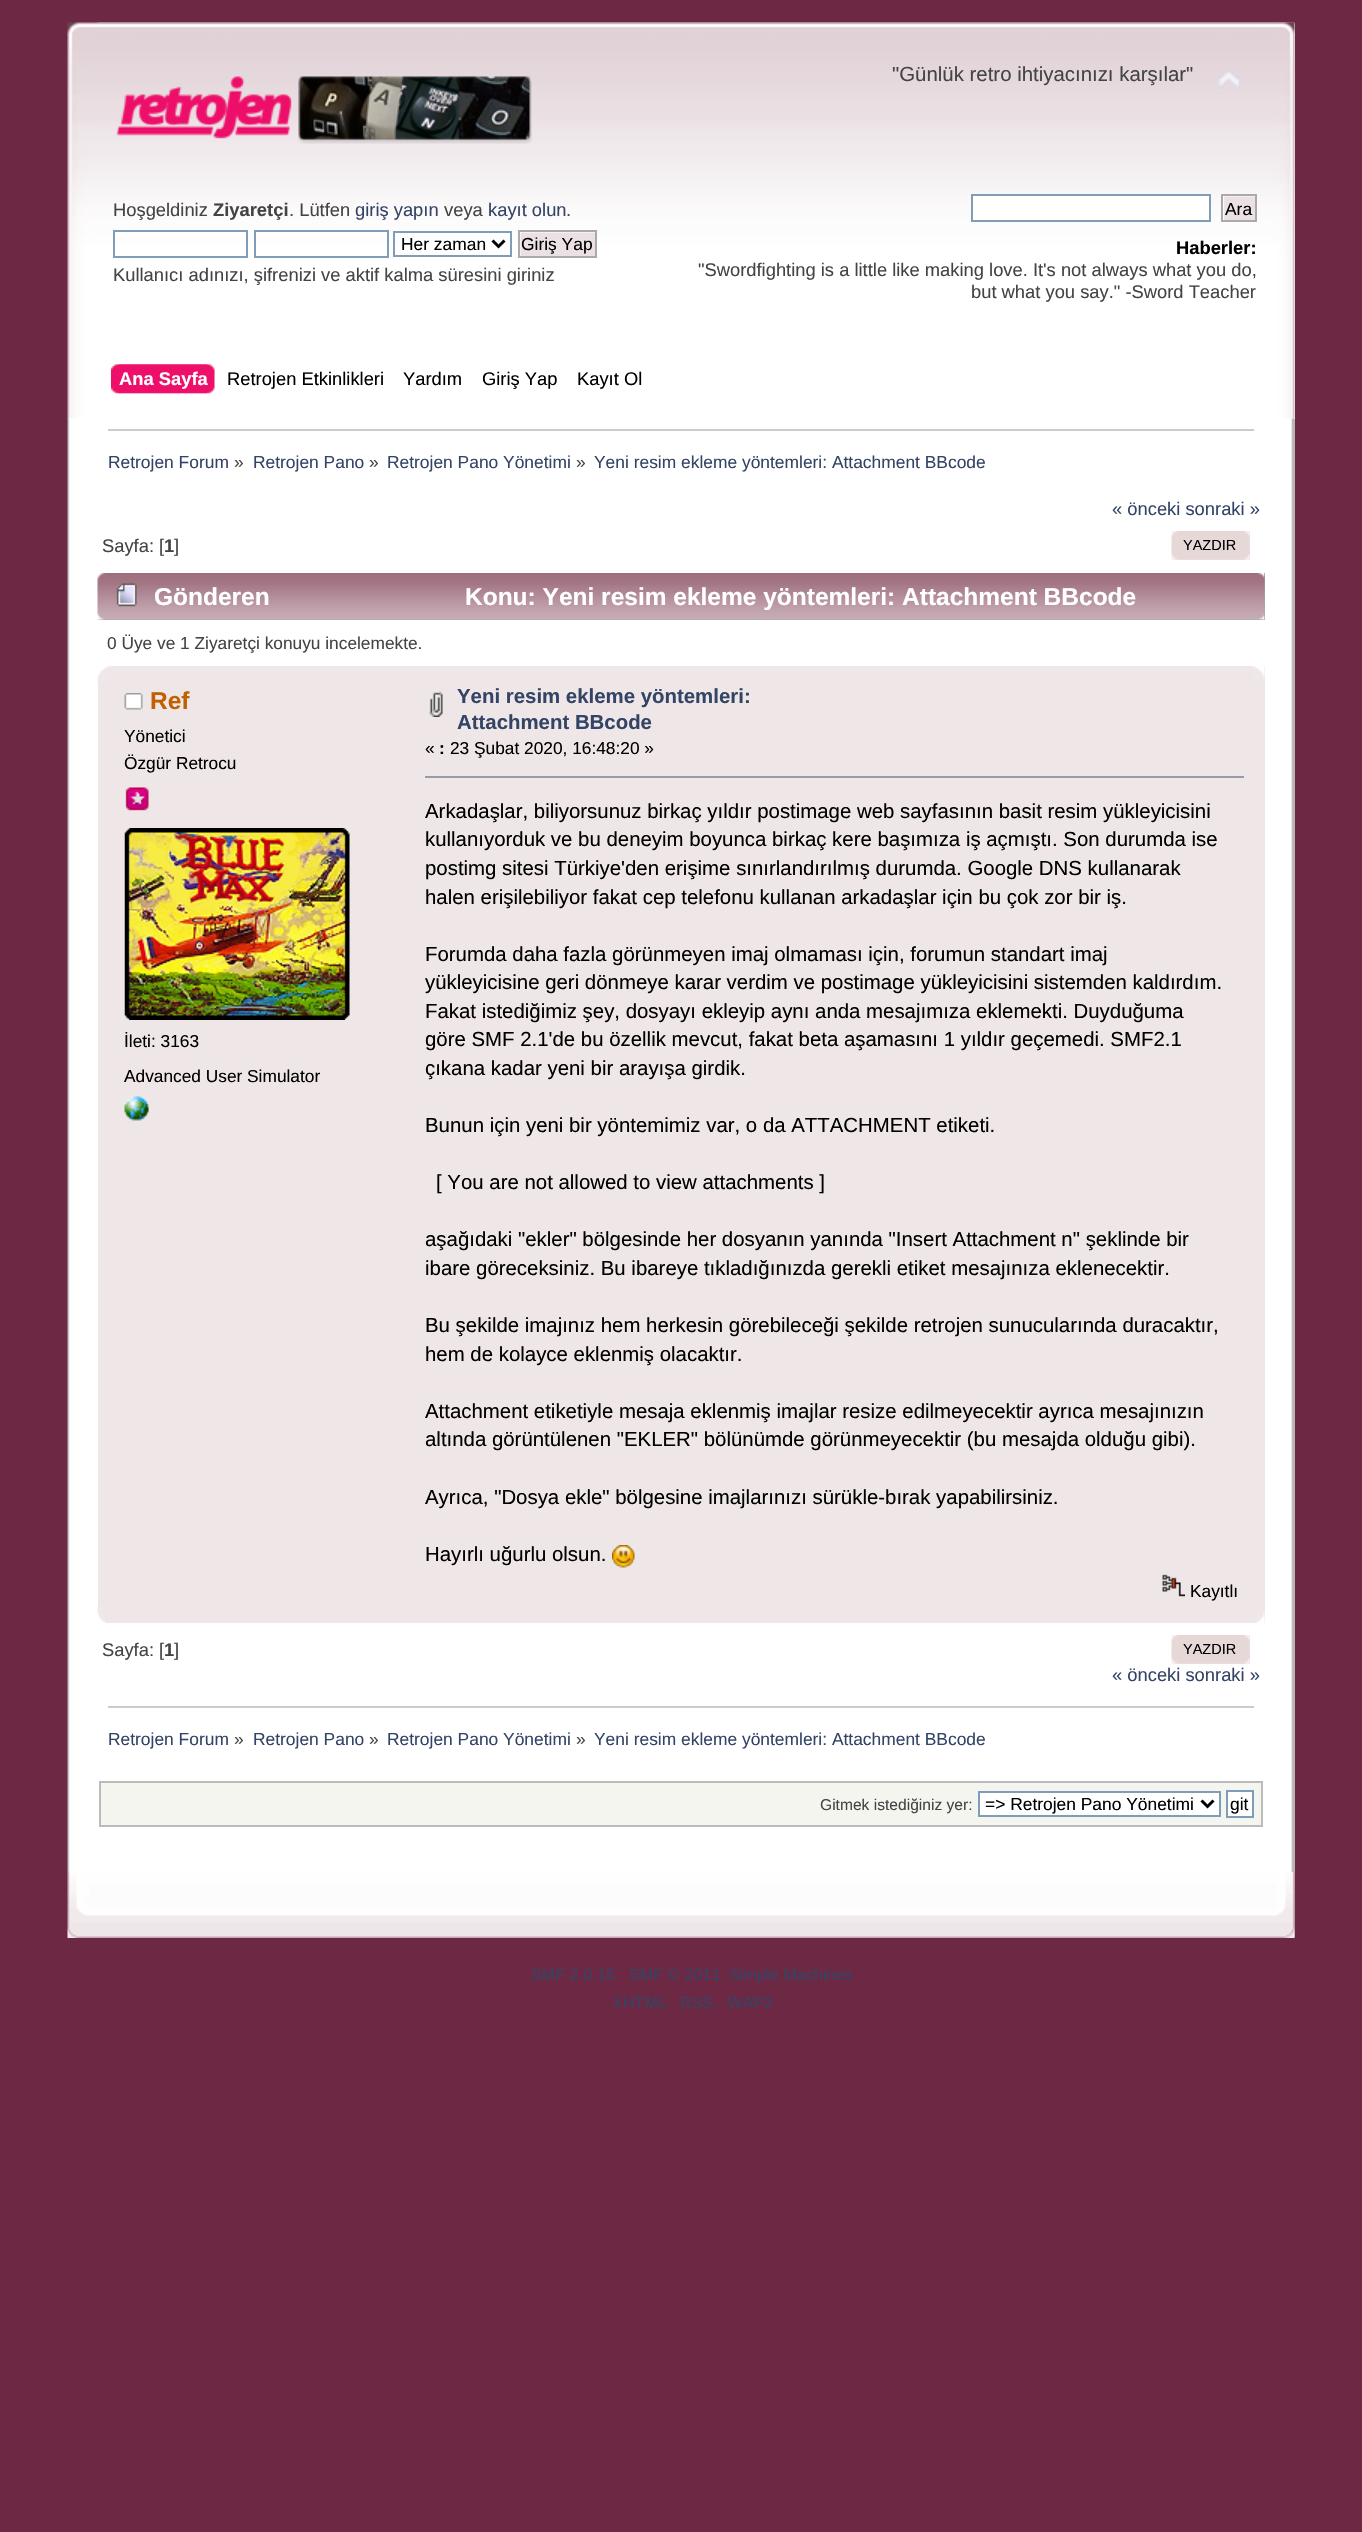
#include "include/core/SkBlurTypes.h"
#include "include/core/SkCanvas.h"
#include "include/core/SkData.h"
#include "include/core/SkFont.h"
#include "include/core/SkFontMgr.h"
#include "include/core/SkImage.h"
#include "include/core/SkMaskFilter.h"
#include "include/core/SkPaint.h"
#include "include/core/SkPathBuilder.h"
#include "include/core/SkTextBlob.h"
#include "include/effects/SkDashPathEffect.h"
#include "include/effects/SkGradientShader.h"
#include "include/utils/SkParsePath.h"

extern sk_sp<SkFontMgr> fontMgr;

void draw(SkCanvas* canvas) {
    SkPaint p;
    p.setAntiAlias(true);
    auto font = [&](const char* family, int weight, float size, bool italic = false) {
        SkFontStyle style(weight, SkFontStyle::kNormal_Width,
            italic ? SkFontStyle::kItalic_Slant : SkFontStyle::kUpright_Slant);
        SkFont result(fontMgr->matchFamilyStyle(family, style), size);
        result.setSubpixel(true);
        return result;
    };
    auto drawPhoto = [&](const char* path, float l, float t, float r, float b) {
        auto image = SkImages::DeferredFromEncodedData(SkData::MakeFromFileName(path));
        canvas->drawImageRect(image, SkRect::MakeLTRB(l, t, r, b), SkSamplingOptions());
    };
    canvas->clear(0xFF6D2844);
    p.setColor(0xFFFEFEFE);
    canvas->drawRect(SkRect::MakeLTRB(68, 23, 1295, 419), p);
    drawPhoto("media/1.png", 67, 22, 1295, 419);
    drawPhoto("media/2.png", 97, 22, 1295, 419);
    drawPhoto("media/3.png", 116, 76, 532, 144);
    auto font1 = font("Liberation Sans", 400, 20.4f);
    p.setColor(0xFF444444);
    canvas->drawString("\"Günlük retro ihtiyacınızı karşılar\"", 892, 81, font1, p);
    drawPhoto("media/4.png", 1217, 70, 1241, 89);
    auto font2 = font("Liberation Sans", 400, 18.35f);
    canvas->drawString("Hoşgeldiniz", 113, 216, font2, p);
    auto font3 = font("Liberation Sans", 700, 18.35f);
    canvas->drawString("Ziyaretçi", 213, 216, font3, p);
    canvas->drawString(". Lütfen", 289, 216, font2, p);
    p.setColor(0xFF334466);
    canvas->drawString("giriş yapın", 355, 216, font2, p);
    p.setColor(0xFF444444);
    canvas->drawString("veya", 444, 216, font2, p);
    p.setColor(0xFF334466);
    canvas->drawString("kayıt olun", 488, 216, font2, p);
    p.setColor(0xFF444444);
    canvas->drawString(".", 566, 216, font2, p);
    p.setColor(0xFFFFFFFF);
    canvas->drawRect(SkRect::MakeLTRB(115, 232, 246, 236), p);
    p.setStyle(SkPaint::kStroke_Style);
    p.setStrokeWidth(2);
    p.setColor(0xFF7F9DB9);
    canvas->drawRect(SkRect::MakeLTRB(114, 231, 247, 257), p);
    p.setStyle(SkPaint::kFill_Style);
    p.setColor(0xFFFFFFFF);
    canvas->drawRect(SkRect::MakeLTRB(256, 232, 387, 236), p);
    p.setStyle(SkPaint::kStroke_Style);
    p.setColor(0xFF7F9DB9);
    canvas->drawRect(SkRect::MakeLTRB(255, 231, 388, 257), p);
    p.setStyle(SkPaint::kFill_Style);
    p.setColor(0xFFFFFFFF);
    canvas->drawRect(SkRect::MakeLTRB(395, 233, 510, 236), p);
    p.setStyle(SkPaint::kStroke_Style);
    p.setColor(0xFF7F9DB9);
    canvas->drawRect(SkRect::MakeLTRB(394, 232, 511, 256), p);
    p.setStrokeWidth(3);
    p.setColor(0xFF000000);
    canvas->drawPath(SkPathBuilder().moveTo(492.5f, 240.5f).lineTo(498.5f, 246.5f).lineTo(504.5f, 240.5f).detach(), p);
    auto font4 = font("Liberation Sans", 400, 17.4f);
    p.setStyle(SkPaint::kFill_Style);
    canvas->drawString("Her zaman", 401, 250, font4, p);
    drawPhoto("media/5.png", 520, 232, 595, 256);
    p.setStyle(SkPaint::kStroke_Style);
    p.setStrokeWidth(2);
    p.setColor(0xFFAAAAAA);
    canvas->drawRect(SkRect::MakeLTRB(519, 231, 596, 257), p);
    p.setStyle(SkPaint::kFill_Style);
    p.setColor(0xFF000000);
    canvas->drawString("Giriş Yap", 521, 250, font4, p);
    p.setColor(0xFF444444);
    canvas->drawString("Kullanıcı adınızı, şifrenizi ve aktif kalma süresini giriniz", 113, 281, font2, p);
    p.setColor(0xFFFFFFFF);
    canvas->drawRect(SkRect::MakeLTRB(972, 195, 1210, 221), p);
    p.setStyle(SkPaint::kStroke_Style);
    p.setColor(0xFF7F9DB9);
    canvas->drawRect(SkRect::MakeLTRB(972, 195, 1210, 221), p);
    drawPhoto("media/6.png", 1223, 196, 1255, 220);
    p.setColor(0xFFAAAAAA);
    canvas->drawRect(SkRect::MakeLTRB(1222, 195, 1256, 221), p);
    p.setStyle(SkPaint::kFill_Style);
    p.setColor(0xFF000000);
    canvas->drawString("Ara", 1225, 215, font4, p);
    canvas->drawString("Haberler:", 1176, 254, font3, p);
    p.setColor(0xFF444444);
    canvas->drawString("\"Swordfighting is a little like making love. It's not always what you do,", 698, 276, font2, p);
    canvas->drawString("but what you say.\" -Sword Teacher", 971, 298, font2, p);
    drawPhoto("media/7.png", 118, 364, 215, 394);
    drawPhoto("media/8.png", 111, 364, 207, 394);
    p.setColor(0xFFFFFFFF);
    canvas->drawString("Ana Sayfa", 119, 385, font3, p);
    p.setColor(0xFF000000);
    {
        const struct { const char* s; float x, y; } items[] = {
            {"Retrojen Etkinlikleri", 227, 385},
            {"Yardım", 403, 385},
            {"Giriş Yap", 482, 385},
            {"Kayıt Ol", 577, 385},
        };
        for (auto [s, x, y] : items) {
            canvas->drawString(s, x, y, font2, p);
        }
    }
    drawPhoto("media/9.png", 67, 418, 1295, 1872);
    drawPhoto("media/10.png", 1291, 418, 1295, 1872);
    p.setColor(0xFFCCCCCC);
    canvas->drawRect(SkRect::MakeLTRB(108, 429, 1254, 431), p);
    p.setColor(0xFF334466);
    canvas->drawString("Retrojen Forum", 108, 468, font4, p);
    p.setColor(0xFF444444);
    canvas->drawString("»", 234, 468, font4, p);
    p.setColor(0xFF334466);
    canvas->drawString("Retrojen Pano", 253, 468, font4, p);
    p.setColor(0xFF444444);
    canvas->drawString("»", 369, 468, font4, p);
    p.setColor(0xFF334466);
    canvas->drawString("Retrojen Pano Yönetimi", 387, 468, font4, p);
    p.setColor(0xFF444444);
    canvas->drawString("»", 576, 468, font4, p);
    p.setColor(0xFF334466);
    canvas->drawString("Yeni resim ekleme yöntemleri: Attachment BBcode", 594, 468, font4, p);
    canvas->drawString("« önceki sonraki »", 1112, 515, font2, p);
    p.setColor(0xFF444444);
    canvas->drawString("Sayfa: [", 102, 552, font2, p);
    canvas->drawString("1", 164, 552, font3, p);
    canvas->drawString("]", 174, 552, font2, p);
    p.setColor(0xFFE8E8E8);
    canvas->drawRect(SkRect::MakeLTRB(1172, 531, 1250, 560), p);
    drawPhoto("media/11.png", 1171, 531, 1250, 560);
    drawPhoto("media/12.png", 1184, 531, 1250, 560);
    auto font5 = font("Liberation Sans", 400, 14.5f);
    p.setColor(0xFF000000);
    canvas->drawString("YAZDIR", 1183, 550, font5, p);
    p.setColor(0xFF99ABBF);
    canvas->drawRect(SkRect::MakeLTRB(98, 573, 1265, 620), p);
    drawPhoto("media/13.png", 97, 573, 1265, 620);
    drawPhoto("media/14.png", 111, 573, 1265, 620);
    drawPhoto("media/15.png", 116, 583, 137, 607);
    auto font6 = font("Liberation Sans", 700, 24.5f);
    p.setColor(0xFFFFFFFF);
    canvas->drawString("Gönderen", 154, 605, font6, p);
    canvas->drawString("Konu: Yeni resim ekleme yöntemleri: Attachment BBcode", 465, 605, font6, p);
    auto font7 = font("Liberation Sans", 400, 17.3f);
    p.setColor(0xFF444444);
    canvas->drawString("0 Üye ve 1 Ziyaretçi konuyu incelemekte.", 107, 649, font7, p);
    p.setColor(0xFFEFE7E7);
    canvas->drawRect(SkRect::MakeLTRB(98, 666, 1265, 1623), p);
    drawPhoto("media/16.png", 97, 666, 110, 683);
    drawPhoto("media/17.png", 1252, 666, 1265, 679);
    drawPhoto("media/18.png", 124, 693, 143, 710);
    p.setColor(0xFFC06002);
    canvas->drawString("Ref", 150, 709, font6, p);
    p.setColor(0xFF000000);
    canvas->drawString("Yönetici", 124, 742, font7, p);
    canvas->drawString("Özgür Retrocu", 124, 769, font7, p);
    drawPhoto("media/19.png", 125, 787, 149, 811);
    drawPhoto("media/20.png", 124, 828, 350, 1020);
    canvas->drawString("İleti: 3163", 124, 1047, font7, p);
    canvas->drawString("Advanced User Simulator", 124, 1082, font7, p);
    drawPhoto("media/21.png", 124, 1096, 149, 1121);
    drawPhoto("media/22.png", 429, 691, 443, 717);
    auto font8 = font("Liberation Sans", 700, 20.4f);
    p.setColor(0xFF334466);
    canvas->drawString("Yeni resim ekleme yöntemleri:", 457, 703, font8, p);
    canvas->drawString("Attachment BBcode", 457, 729, font8, p);
    p.setColor(0xFF000000);
    canvas->drawString("«", 425, 754, font7, p);
    auto font9 = font("Liberation Sans", 700, 17.3f);
    canvas->drawString(":", 439, 754, font9, p);
    canvas->drawString("23 Şubat 2020, 16:48:20 »", 450, 754, font7, p);
    p.setColor(0xFF9999AA);
    canvas->drawRect(SkRect::MakeLTRB(425, 776, 1244, 778), p);
    p.setColor(0xFF000000);
    {
        const struct { const char* s; float x, y; } items[] = {
            {"Arkadaşlar, biliyorsunuz birkaç yıldır postimage web sayfasının basit resim yükleyicisini", 425, 818},
            {"kullanıyorduk ve bu deneyim boyunca birkaç kere başımıza iş açmıştı. Son durumda ise", 425, 846},
            {"postimg sitesi Türkiye'den erişime sınırlandırılmış durumda. Google DNS kullanarak", 425, 875},
            {"halen erişilebiliyor fakat cep telefonu kullanan arkadaşlar için bu çok zor bir iş.", 425, 904},
            {"Forumda daha fazla görünmeyen imaj olmaması için, forumun standart imaj", 425, 961},
            {"yükleyicisine geri dönmeye karar verdim ve postimage yükleyicisini sistemden kaldırdım.", 425, 989},
            {"Fakat istediğimiz şey, dosyayı ekleyip aynı anda mesajımıza eklemekti. Duyduğuma", 425, 1018},
            {"göre SMF 2.1'de bu özellik mevcut, fakat beta aşamasını 1 yıldır geçemedi. SMF2.1", 425, 1046},
            {"çıkana kadar yeni bir arayışa girdik.", 425, 1075},
            {"Bunun için yeni bir yöntemimiz var, o da ATTACHMENT etiketi.", 425, 1132},
            {"[ You are not allowed to view attachments ]", 436, 1189},
            {"aşağıdaki \"ekler\" bölgesinde her dosyanın yanında \"Insert Attachment n\" şeklinde bir", 425, 1246},
            {"ibare göreceksiniz. Bu ibareye tıkladığınızda gerekli etiket mesajınıza eklenecektir.", 425, 1275},
            {"Bu şekilde imajınız hem herkesin görebileceği şekilde retrojen sunucularında duracaktır,", 425, 1332},
            {"hem de kolayce eklenmiş olacaktır.", 425, 1361},
            {"Attachment etiketiyle mesaja eklenmiş imajlar resize edilmeyecektir ayrıca mesajınızın", 425, 1418},
            {"altında görüntülenen \"EKLER\" bölünümde görünmeyecektir (bu mesajda olduğu gibi).", 425, 1446},
            {"Ayrıca, \"Dosya ekle\" bölgesine imajlarınızı sürükle-bırak yapabilirsiniz.", 425, 1504},
            {"Hayırlı uğurlu olsun.", 425, 1561},
        };
        for (auto [s, x, y] : items) {
            canvas->drawString(s, x, y, font1, p);
        }
    }
    drawPhoto("media/23.png", 612, 1545, 635, 1568);
    drawPhoto("media/24.png", 1162, 1574, 1185, 1597);
    canvas->drawString("Kayıtlı", 1190, 1597, font7, p);
    drawPhoto("media/25.png", 97, 1606, 106, 1623);
    drawPhoto("media/26.png", 1256, 1612, 1265, 1623);
    p.setColor(0xFF444444);
    canvas->drawString("Sayfa: [", 102, 1656, font2, p);
    canvas->drawString("1", 164, 1656, font3, p);
    canvas->drawString("]", 174, 1656, font2, p);
    p.setColor(0xFFE8E8E8);
    canvas->drawRect(SkRect::MakeLTRB(1172, 1635, 1250, 1664), p);
    drawPhoto("media/11.png", 1171, 1635, 1250, 1664);
    drawPhoto("media/12.png", 1184, 1635, 1250, 1664);
    p.setColor(0xFF000000);
    canvas->drawString("YAZDIR", 1183, 1654, font5, p);
    p.setColor(0xFF334466);
    canvas->drawString("« önceki sonraki »", 1112, 1681, font2, p);
    p.setColor(0xFFCCCCCC);
    canvas->drawRect(SkRect::MakeLTRB(108, 1706, 1254, 1708), p);
    p.setColor(0xFF334466);
    canvas->drawString("Retrojen Forum", 108, 1745, font4, p);
    p.setColor(0xFF444444);
    canvas->drawString("»", 234, 1745, font4, p);
    p.setColor(0xFF334466);
    canvas->drawString("Retrojen Pano", 253, 1745, font4, p);
    p.setColor(0xFF444444);
    canvas->drawString("»", 369, 1745, font4, p);
    p.setColor(0xFF334466);
    canvas->drawString("Retrojen Pano Yönetimi", 387, 1745, font4, p);
    p.setColor(0xFF444444);
    canvas->drawString("»", 576, 1745, font4, p);
    p.setColor(0xFF334466);
    canvas->drawString("Yeni resim ekleme yöntemleri: Attachment BBcode", 594, 1745, font4, p);
    p.setColor(0xFFF5F5F0);
    canvas->drawRect(SkRect::MakeLTRB(100, 1782, 1262, 1826), p);
    p.setStyle(SkPaint::kStroke_Style);
    p.setColor(0xFFBBBBBB);
    canvas->drawRect(SkRect::MakeLTRB(100, 1782, 1262, 1826), p);
    auto font10 = font("Liberation Sans", 400, 15.6f);
    p.setStyle(SkPaint::kFill_Style);
    p.setColor(0xFF444444);
    canvas->drawString("Gitmek istediğiniz yer:", 820, 1810, font10, p);
    p.setColor(0xFFFFFFFF);
    canvas->drawRect(SkRect::MakeLTRB(979, 1792, 1220, 1816), p);
    p.setStyle(SkPaint::kStroke_Style);
    p.setColor(0xFF7F9DB9);
    canvas->drawRect(SkRect::MakeLTRB(979, 1792, 1220, 1816), p);
    p.setStrokeWidth(3);
    p.setColor(0xFF000000);
    canvas->drawPath(SkPathBuilder().moveTo(1201.5f, 1800.5f).lineTo(1207.5f, 1806.5f).lineTo(1213.5f, 1800.5f).detach(), p);
    p.setStyle(SkPaint::kFill_Style);
    canvas->drawString("=> Retrojen Pano Yönetimi", 985, 1810, font4, p);
    p.setColor(0xFFFFFFFF);
    canvas->drawRect(SkRect::MakeLTRB(1227, 1791, 1253, 1817), p);
    p.setStyle(SkPaint::kStroke_Style);
    p.setStrokeWidth(2);
    p.setColor(0xFF7F9DB9);
    canvas->drawRect(SkRect::MakeLTRB(1227, 1791, 1253, 1817), p);
    p.setStyle(SkPaint::kFill_Style);
    p.setColor(0xFF000000);
    canvas->drawString("git", 1230, 1810, font4, p);
    drawPhoto("media/27.png", 67, 1872, 1295, 1938);
    drawPhoto("media/28.png", 1276, 1872, 1295, 1938);
    auto font11 = font("Liberation Sans", 400, 16.25f);
    p.setColor(0xFF334466);
    {
        const struct { const char* s; float x, y; } items[] = {
            {"SMF 2.0.15", 531, 1980},
            {"SMF © 2011", 629, 1980},
            {"Simple Machines", 729, 1980},
            {"XHTML", 612, 2008},
            {"RSS", 680, 2008},
            {"WAP2", 727, 2008},
        };
        for (auto [s, x, y] : items) {
            canvas->drawString(s, x, y, font11, p);
        }
    }
}
